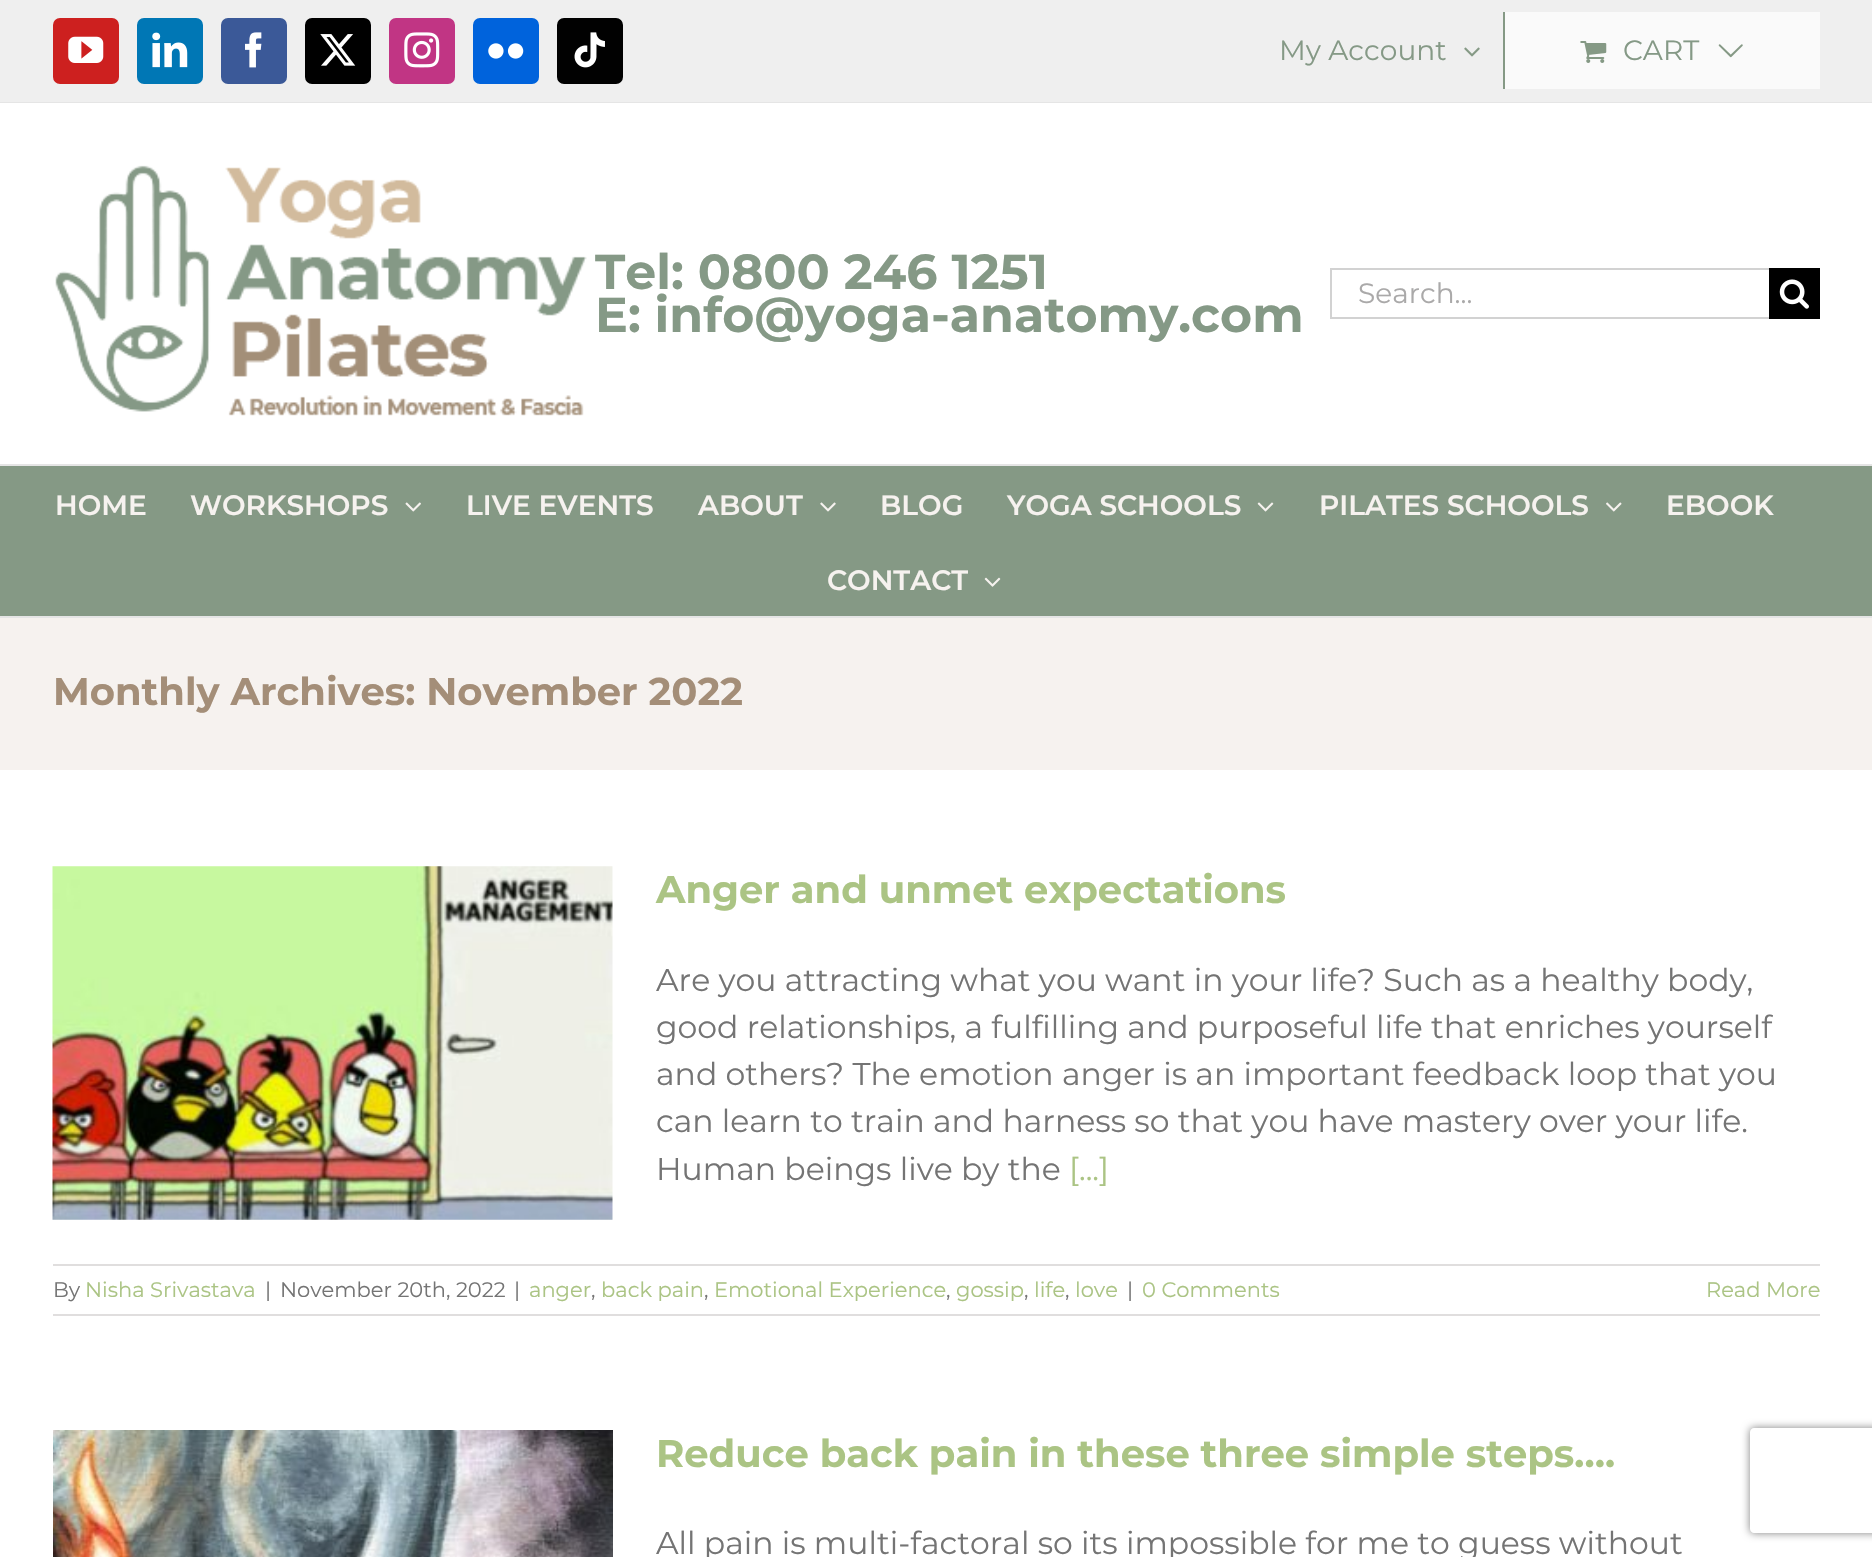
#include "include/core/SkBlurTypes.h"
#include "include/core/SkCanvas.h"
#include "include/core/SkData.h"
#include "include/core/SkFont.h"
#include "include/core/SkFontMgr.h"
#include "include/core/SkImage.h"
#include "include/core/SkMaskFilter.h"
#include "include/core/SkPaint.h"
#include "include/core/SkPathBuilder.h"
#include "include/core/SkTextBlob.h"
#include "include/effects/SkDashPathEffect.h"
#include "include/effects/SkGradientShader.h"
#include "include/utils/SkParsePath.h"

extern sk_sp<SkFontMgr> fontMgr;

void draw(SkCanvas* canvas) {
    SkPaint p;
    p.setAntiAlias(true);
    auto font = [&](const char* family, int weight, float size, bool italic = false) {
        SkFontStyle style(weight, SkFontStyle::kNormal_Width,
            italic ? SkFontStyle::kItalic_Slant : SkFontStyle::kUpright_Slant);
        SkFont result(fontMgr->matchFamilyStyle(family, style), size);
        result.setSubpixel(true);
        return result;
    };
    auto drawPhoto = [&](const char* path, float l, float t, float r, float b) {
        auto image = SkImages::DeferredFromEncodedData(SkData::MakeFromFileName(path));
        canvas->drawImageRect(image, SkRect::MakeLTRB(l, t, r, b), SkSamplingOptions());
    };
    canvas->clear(0xFFFFFFFF);
    p.setColor(0xFFEFEFEF);
    canvas->drawRect(SkRect::MakeLTRB(0, 0, 1872, 102), p);
    p.setColor(0xFFE5E5E5);
    canvas->drawRect(SkRect::MakeLTRB(0, 102, 1872, 103), p);
    p.setColor(0xFFCD201F);
    canvas->drawRoundRect(SkRect::MakeLTRB(54, 19, 118, 83), 6, 6, p);
    p.setStyle(SkPaint::kStroke_Style);
    p.setStrokeWidth(2);
    canvas->drawRoundRect(SkRect::MakeLTRB(54, 19, 118, 83), 6, 6, p);
    drawPhoto("media/1.png", 68, 36, 104, 63);
    p.setStyle(SkPaint::kFill_Style);
    p.setColor(0xFF0077B5);
    canvas->drawRoundRect(SkRect::MakeLTRB(138, 19, 202, 83), 6, 6, p);
    p.setStyle(SkPaint::kStroke_Style);
    canvas->drawRoundRect(SkRect::MakeLTRB(138, 19, 202, 83), 6, 6, p);
    drawPhoto("media/2.png", 152, 32, 188, 68);
    p.setStyle(SkPaint::kFill_Style);
    p.setColor(0xFF3B5998);
    canvas->drawRoundRect(SkRect::MakeLTRB(222, 19, 286, 83), 6, 6, p);
    p.setStyle(SkPaint::kStroke_Style);
    canvas->drawRoundRect(SkRect::MakeLTRB(222, 19, 286, 83), 6, 6, p);
    drawPhoto("media/3.png", 245, 32, 262, 68);
    p.setStyle(SkPaint::kFill_Style);
    p.setColor(0xFF000000);
    canvas->drawRoundRect(SkRect::MakeLTRB(306, 19, 370, 83), 6, 6, p);
    p.setStyle(SkPaint::kStroke_Style);
    canvas->drawRoundRect(SkRect::MakeLTRB(306, 19, 370, 83), 6, 6, p);
    drawPhoto("media/4.png", 320, 34, 356, 66);
    p.setStyle(SkPaint::kFill_Style);
    p.setColor(0xFFC13584);
    canvas->drawRoundRect(SkRect::MakeLTRB(390, 19, 454, 83), 6, 6, p);
    p.setStyle(SkPaint::kStroke_Style);
    canvas->drawRoundRect(SkRect::MakeLTRB(390, 19, 454, 83), 6, 6, p);
    drawPhoto("media/5.png", 404, 32, 440, 68);
    p.setStyle(SkPaint::kFill_Style);
    p.setColor(0xFF0063DC);
    canvas->drawRoundRect(SkRect::MakeLTRB(474, 19, 538, 83), 6, 6, p);
    p.setStyle(SkPaint::kStroke_Style);
    canvas->drawRoundRect(SkRect::MakeLTRB(474, 19, 538, 83), 6, 6, p);
    drawPhoto("media/6.png", 488, 43, 524, 59);
    p.setStyle(SkPaint::kFill_Style);
    p.setColor(0xFF010101);
    canvas->drawRoundRect(SkRect::MakeLTRB(558, 19, 622, 83), 6, 6, p);
    p.setStyle(SkPaint::kStroke_Style);
    canvas->drawRoundRect(SkRect::MakeLTRB(558, 19, 622, 83), 6, 6, p);
    drawPhoto("media/7.png", 574, 32, 605, 68);
    auto font1 = font("Montserrat", 400, 28);
    p.setStyle(SkPaint::kFill_Style);
    p.setColor(0xFF859986);
    canvas->drawString("My Account", 1279, 60, font1, p);
    drawPhoto("media/8.png", 1464, 47, 1480, 57);
    p.setColor(0xFF859985);
    canvas->drawRect(SkRect::MakeLTRB(1503, 12, 1505, 89), p);
    p.setColor(0xFFFAFAFA);
    canvas->drawRect(SkRect::MakeLTRB(1505, 12, 1820, 89), p);
    drawPhoto("media/9.png", 1580, 41, 1607, 63);
    p.setColor(0xFF859986);
    canvas->drawString("CART", 1623, 60, font1, p);
    drawPhoto("media/10.png", 1718, 44, 1743, 58);
    p.setColor(0xFFE5E5E5);
    canvas->drawRect(SkRect::MakeLTRB(0, 464, 1872, 466), p);
    drawPhoto("media/11.png", 55, 165, 587, 416);
    auto font2 = font("Montserrat", 700, 49);
    p.setColor(0xFF859986);
    canvas->drawString("Tel: 0800 246 1251", 595, 289, font2, p);
    canvas->drawString("E: info@yoga-anatomy.com", 595, 332, font2, p);
    {
        const struct { float l, t, r, b; SkColor color; } items[] = {
            {1330, 268, 1769, 270, 0xFFD2D2D2},
            {1330, 317, 1769, 319, 0xFFD2D2D2},
            {1330, 268, 1332, 319, 0xFFD2D2D2},
        };
        for (auto [l, t, r, b, color] : items) {
            p.setColor(color);
            canvas->drawRect(SkRect::MakeLTRB(l, t, r, b), p);
        }
    }
    p.setColor(0xFFAAA9A9);
    canvas->drawString("Search...", 1358, 303, font1, p);
    p.setColor(0xFF000000);
    canvas->drawRect(SkRect::MakeLTRB(1769, 268, 1820, 319), p);
    drawPhoto("media/12.png", 1779, 279, 1809, 309);
    p.setColor(0xFF859985);
    canvas->drawRect(SkRect::MakeLTRB(0, 466, 1872, 616), p);
    p.setColor(0xFFE5E5E5);
    canvas->drawRect(SkRect::MakeLTRB(0, 616, 1872, 618), p);
    auto font3 = font("Montserrat", 600, 28);
    p.setColor(0xFFF6F2EF);
    canvas->drawString("HOME", 55, 515, font3, p);
    canvas->drawString("WORKSHOPS", 190, 515, font3, p);
    drawPhoto("media/13.png", 405, 502, 421, 512);
    canvas->drawString("LIVE EVENTS", 466, 515, font3, p);
    canvas->drawString("ABOUT", 698, 515, font3, p);
    drawPhoto("media/14.png", 820, 502, 836, 512);
    canvas->drawString("BLOG", 880, 515, font3, p);
    canvas->drawString("YOGA SCHOOLS", 1007, 515, font3, p);
    drawPhoto("media/15.png", 1257, 502, 1274, 512);
    canvas->drawString("PILATES SCHOOLS", 1319, 515, font3, p);
    drawPhoto("media/16.png", 1606, 502, 1622, 512);
    canvas->drawString("EBOOK", 1666, 515, font3, p);
    canvas->drawString("CONTACT", 827, 590, font3, p);
    drawPhoto("media/17.png", 984, 577, 1001, 587);
    canvas->drawRect(SkRect::MakeLTRB(0, 618, 1872, 770), p);
    auto font4 = font("Montserrat", 700, 38.5f);
    p.setColor(0xFFA48E78);
    canvas->drawString("Monthly Archives: November 2022", 53, 705, font4, p);
    drawPhoto("media/18.png", 52, 866, 613, 1220);
    p.setColor(0xFFABC484);
    canvas->drawString("Anger and unmet expectations", 656, 903, font4, p);
    auto font5 = font("Montserrat", 400, 31.5f);
    p.setColor(0xFF747474);
    {
        const struct { const char* s; float x, y; } items[] = {
            {"Are you attracting what you want in your life? Such as a healthy body,", 656, 991},
            {"good relationships, a fulfilling and purposeful life that enriches yourself", 656, 1038},
            {"and others? The emotion anger is an important feedback loop that you", 656, 1085},
            {"can learn to train and harness so that you have mastery over your life.", 656, 1132},
            {"Human beings live by the", 656, 1180},
        };
        for (auto [s, x, y] : items) {
            canvas->drawString(s, x, y, font5, p);
        }
    }
    p.setColor(0xFFABC484);
    canvas->drawString("[...]", 1069, 1180, font5, p);
    p.setColor(0xFFE0DEDE);
    canvas->drawRect(SkRect::MakeLTRB(53, 1264, 1820, 1266), p);
    canvas->drawRect(SkRect::MakeLTRB(53, 1314, 1820, 1316), p);
    auto font6 = font("Montserrat", 400, 21);
    p.setColor(0xFF747474);
    canvas->drawString("By", 53, 1297, font6, p);
    p.setColor(0xFFABC484);
    canvas->drawString("Nisha Srivastava", 85, 1297, font6, p);
    p.setColor(0xFF747474);
    {
        const struct { const char* s; float x, y; } items[] = {
            {"|", 265, 1297},
            {"November 20th, 2022", 280, 1297},
            {"|", 514, 1297},
        };
        for (auto [s, x, y] : items) {
            canvas->drawString(s, x, y, font6, p);
        }
    }
    p.setColor(0xFFABC484);
    canvas->drawString("anger", 529, 1297, font6, p);
    p.setColor(0xFF747474);
    canvas->drawString(",", 591, 1297, font6, p);
    p.setColor(0xFFABC484);
    canvas->drawString("back pain", 601, 1297, font6, p);
    p.setColor(0xFF747474);
    canvas->drawString(",", 704, 1297, font6, p);
    p.setColor(0xFFABC484);
    canvas->drawString("Emotional Experience", 714, 1297, font6, p);
    p.setColor(0xFF747474);
    canvas->drawString(",", 946, 1297, font6, p);
    p.setColor(0xFFABC484);
    canvas->drawString("gossip", 956, 1297, font6, p);
    p.setColor(0xFF747474);
    canvas->drawString(",", 1024, 1297, font6, p);
    p.setColor(0xFFABC484);
    canvas->drawString("life", 1034, 1297, font6, p);
    p.setColor(0xFF747474);
    canvas->drawString(",", 1065, 1297, font6, p);
    p.setColor(0xFFABC484);
    canvas->drawString("love", 1075, 1297, font6, p);
    p.setColor(0xFF747474);
    canvas->drawString("|", 1127, 1297, font6, p);
    p.setColor(0xFFABC484);
    canvas->drawString("0 Comments", 1142, 1297, font6, p);
    canvas->drawString("Read More", 1706, 1297, font6, p);
    drawPhoto("media/19.png", 53, 1430, 613, 1557);
    canvas->drawString("Reduce back pain in these three simple steps….", 656, 1467, font4, p);
    p.setColor(0xFF747474);
    canvas->drawString("All pain is multi-factoral so its impossible for me to guess without", 656, 1554, font5, p);
    canvas->save();
    canvas->clipPath(SkPathBuilder(SkPathFillType::kEvenOdd).moveTo(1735, 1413).lineTo(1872, 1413).lineTo(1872, 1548).lineTo(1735, 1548).close().moveTo(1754, 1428).lineTo(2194, 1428).cubicTo(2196, 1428, 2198, 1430, 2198, 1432).lineTo(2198, 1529).cubicTo(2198, 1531, 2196, 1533, 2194, 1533).lineTo(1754, 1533).cubicTo(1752, 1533, 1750, 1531, 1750, 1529).lineTo(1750, 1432).cubicTo(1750, 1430, 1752, 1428, 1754, 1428).close().detach(), true);
    p.setColor(0xFF808080);
    p.setMaskFilter(SkMaskFilter::MakeBlur(kNormal_SkBlurStyle, 4.5f));
    canvas->drawRoundRect(SkRect::MakeLTRB(1750, 1428, 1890, 1533), 4, 4, p);
    p.setMaskFilter(nullptr);
    canvas->restore();
}
